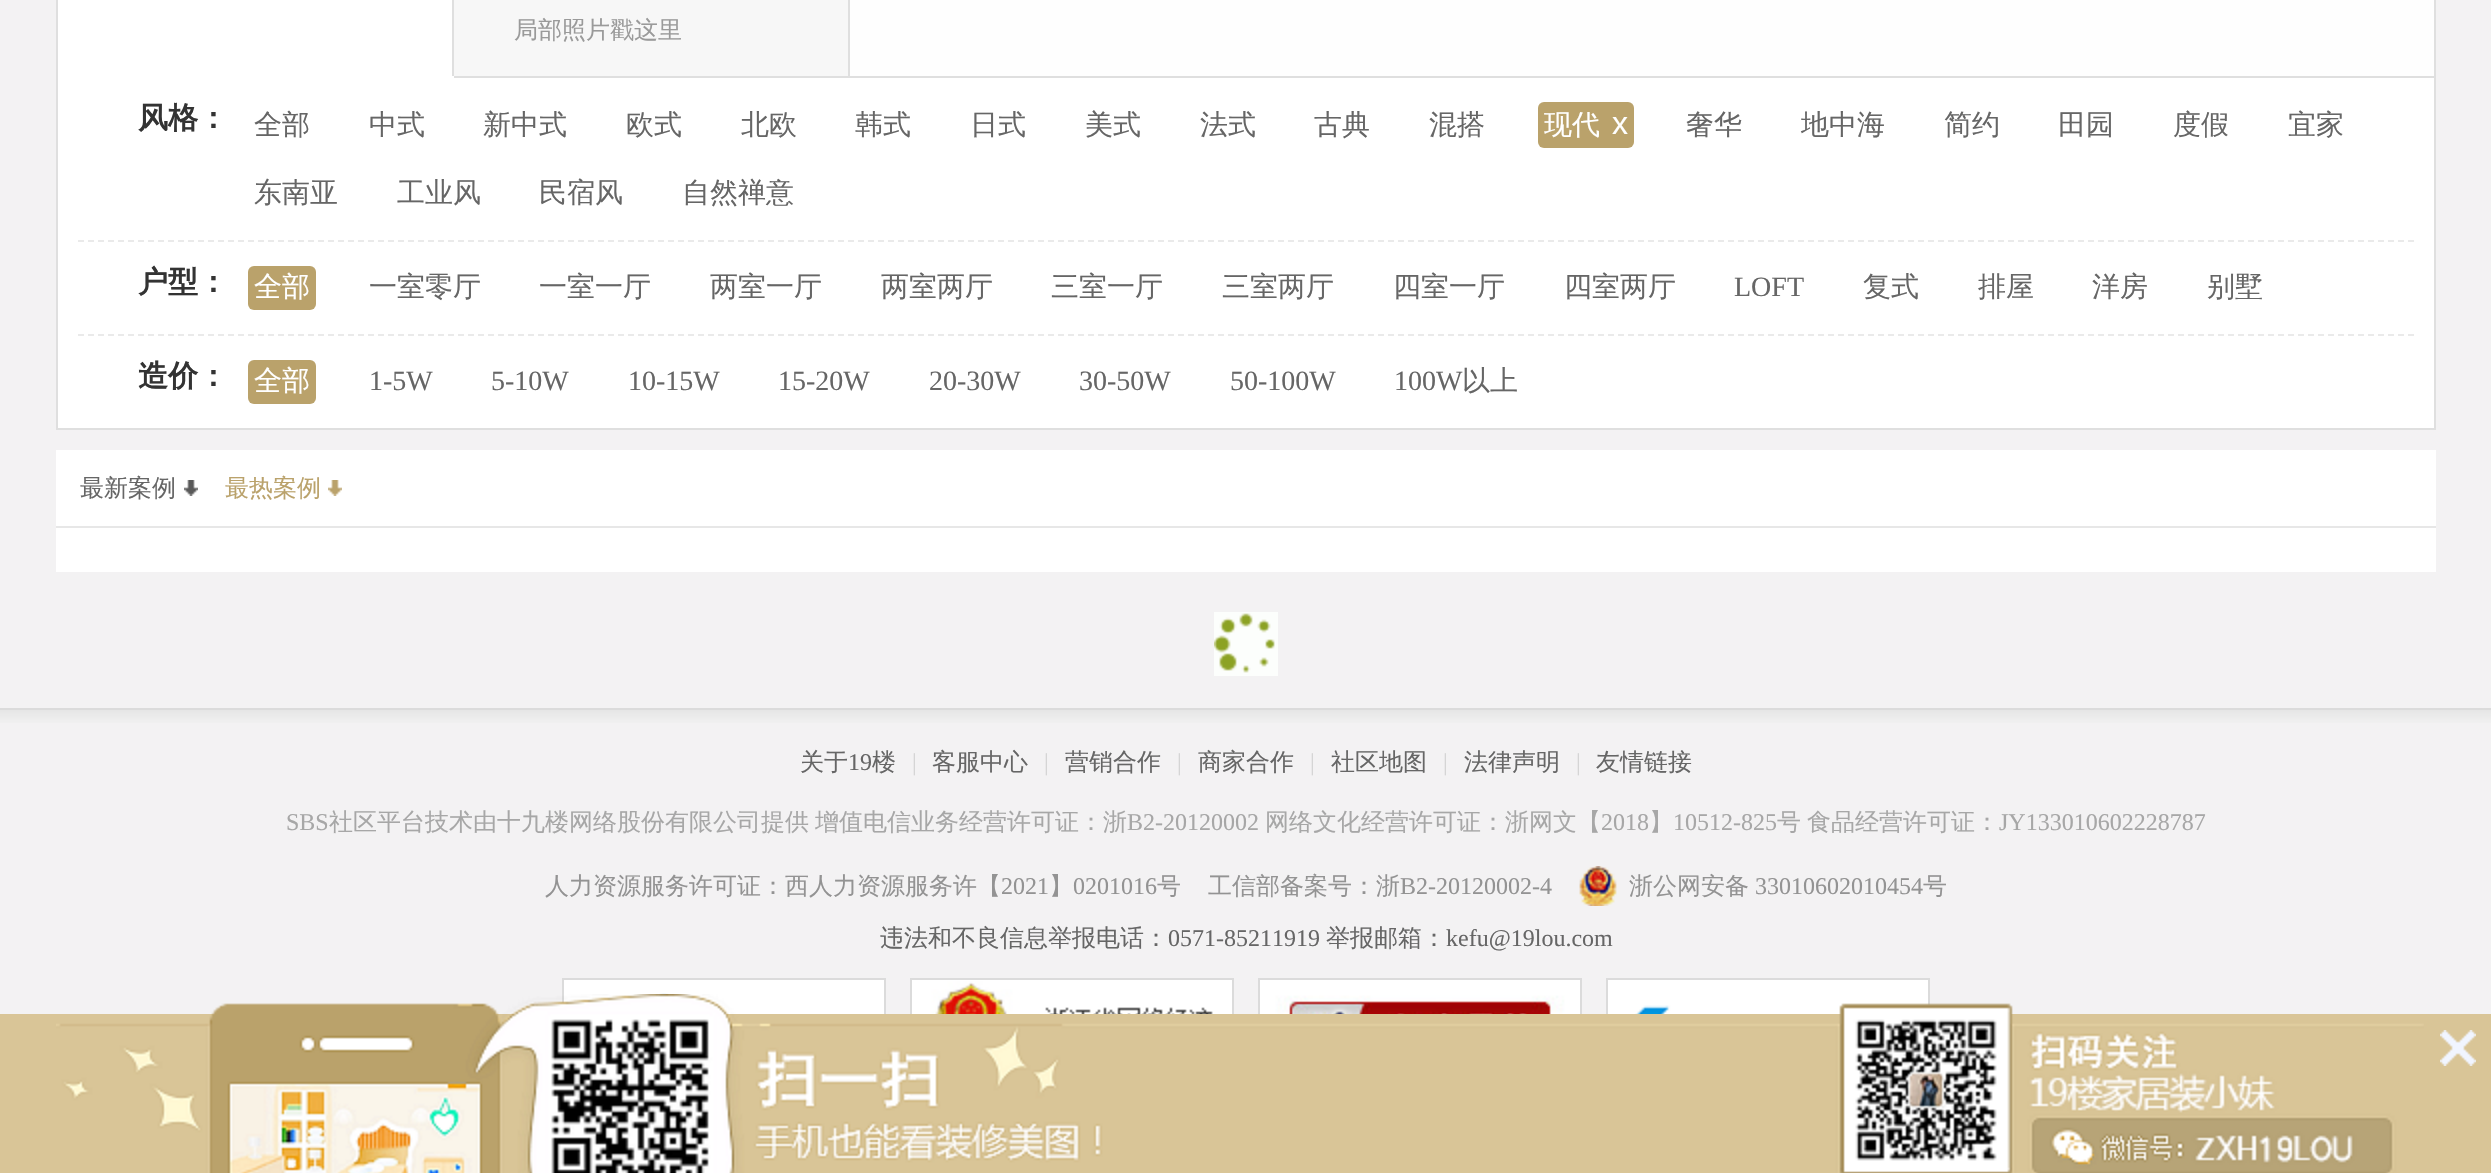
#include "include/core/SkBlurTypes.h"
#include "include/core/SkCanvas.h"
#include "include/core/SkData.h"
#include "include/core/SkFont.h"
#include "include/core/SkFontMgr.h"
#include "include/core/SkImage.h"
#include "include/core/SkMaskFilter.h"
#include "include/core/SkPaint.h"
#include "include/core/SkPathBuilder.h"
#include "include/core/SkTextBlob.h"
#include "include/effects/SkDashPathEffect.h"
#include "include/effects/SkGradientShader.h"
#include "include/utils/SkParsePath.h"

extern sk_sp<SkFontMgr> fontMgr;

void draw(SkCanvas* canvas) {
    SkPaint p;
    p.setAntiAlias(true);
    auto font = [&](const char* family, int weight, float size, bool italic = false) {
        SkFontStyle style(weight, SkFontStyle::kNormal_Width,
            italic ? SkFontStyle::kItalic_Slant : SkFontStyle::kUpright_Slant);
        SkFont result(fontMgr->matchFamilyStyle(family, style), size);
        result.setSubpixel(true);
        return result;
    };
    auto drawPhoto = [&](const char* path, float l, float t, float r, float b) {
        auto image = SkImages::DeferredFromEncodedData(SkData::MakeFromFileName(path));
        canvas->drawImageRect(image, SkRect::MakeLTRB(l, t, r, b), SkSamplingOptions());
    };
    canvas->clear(0xFFF3F2F3);
    {
        const struct { float l, t, r, b; SkColor color; } items[] = {
            {850, 0, 2434, 76, 0xFFFEFEFE},
            {2434, 0, 2436, 76, 0xFFDFDFDF},
            {56, 0, 58, 76, 0xFFDFDFDF},
            {58, 0, 452, 76, 0xFFFFFFFF},
        };
        for (auto [l, t, r, b, color] : items) {
            p.setColor(color);
            canvas->drawRect(SkRect::MakeLTRB(l, t, r, b), p);
        }
    }
    canvas->drawRect(SkRect::MakeLTRB(57, 77, 2435, 429), p);
    p.setStyle(SkPaint::kStroke_Style);
    p.setStrokeWidth(2);
    p.setColor(0xFFDFDFDF);
    canvas->drawRect(SkRect::MakeLTRB(57, 77, 2435, 429), p);
    p.setStyle(SkPaint::kFill_Style);
    {
        const struct { float l, t, r, b; SkColor color; } items[] = {
            {452, 0, 454, 78, 0xFFDFDFDF},
            {58, 76, 454, 78, 0xFFFFFFFF},
            {454, 0, 848, 76, 0xFFF7F7F7},
            {848, 0, 850, 76, 0xFFDFDFDF},
        };
        for (auto [l, t, r, b, color] : items) {
            p.setColor(color);
            canvas->drawRect(SkRect::MakeLTRB(l, t, r, b), p);
        }
    }
    auto font1 = font("WenQuanYi Zen Hei", 500, 24);
    p.setColor(0xFF9A9A9A);
    canvas->drawString("局部照片戳这里", 514, 38, font1, p);
    auto font2 = font("WenQuanYi Zen Hei", 700, 30);
    p.setColor(0xFF333333);
    canvas->drawString("风格：", 138, 128, font2, p);
    auto font3 = font("WenQuanYi Zen Hei", 500, 28);
    p.setColor(0xFF666666);
    {
        const struct { const char* s; float x, y; } items[] = {
            {"全部", 254, 134},
            {"中式", 369, 134},
            {"新中式", 483, 134},
            {"欧式", 626, 134},
            {"北欧", 741, 134},
            {"韩式", 855, 134},
            {"日式", 970, 134},
            {"美式", 1085, 134},
            {"法式", 1200, 134},
            {"古典", 1314, 134},
            {"混搭", 1429, 134},
        };
        for (auto [s, x, y] : items) {
            canvas->drawString(s, x, y, font3, p);
        }
    }
    p.setColor(0xFFBAA26B);
    canvas->drawRoundRect(SkRect::MakeLTRB(1538, 102, 1634, 148), 6, 6, p);
    p.setColor(0xFFFFFFFF);
    canvas->drawString("现代", 1544, 134, font3, p);
    auto font4 = font("Liberation Sans", 400, 32);
    canvas->drawString("x", 1612, 134, font4, p);
    p.setColor(0xFF666666);
    {
        const struct { const char* s; float x, y; } items[] = {
            {"奢华", 1686, 134},
            {"地中海", 1801, 134},
            {"简约", 1944, 134},
            {"田园", 2058, 134},
            {"度假", 2173, 134},
            {"宜家", 2288, 134},
            {"东南亚", 254, 202},
            {"工业风", 397, 202},
            {"民宿风", 539, 202},
            {"自然禅意", 682, 202},
        };
        for (auto [s, x, y] : items) {
            canvas->drawString(s, x, y, font3, p);
        }
    }
    p.setStyle(SkPaint::kStroke_Style);
    p.setColor(0xFFEAEAEA);
    p.setPathEffect(SkDashPathEffect::Make({{6, 4}}, 0));
    canvas->drawPath(SkPathBuilder().moveTo(78, 241).lineTo(2414, 241).detach(), p);
    p.setPathEffect(nullptr);
    p.setStyle(SkPaint::kFill_Style);
    p.setColor(0xFF333333);
    canvas->drawString("户型：", 138, 292, font2, p);
    p.setColor(0xFFBAA26B);
    canvas->drawRoundRect(SkRect::MakeLTRB(248, 266, 316, 310), 6, 6, p);
    p.setColor(0xFFFFFFFF);
    canvas->drawString("全部", 254, 296, font3, p);
    p.setColor(0xFF666666);
    {
        const struct { const char* s; float x, y; } items[] = {
            {"一室零厅", 369, 296},
            {"一室一厅", 539, 296},
            {"两室一厅", 710, 296},
            {"两室两厅", 881, 296},
            {"三室一厅", 1051, 296},
            {"三室两厅", 1222, 296},
            {"四室一厅", 1393, 296},
            {"四室两厅", 1564, 296},
        };
        for (auto [s, x, y] : items) {
            canvas->drawString(s, x, y, font3, p);
        }
    }
    auto font5 = font("Liberation Serif", 400, 28);
    canvas->drawString("LOFT", 1734, 296, font5, p);
    {
        const struct { const char* s; float x, y; } items[] = {
            {"复式", 1863, 296},
            {"排屋", 1978, 296},
            {"洋房", 2092, 296},
            {"别墅", 2207, 296},
        };
        for (auto [s, x, y] : items) {
            canvas->drawString(s, x, y, font3, p);
        }
    }
    p.setStyle(SkPaint::kStroke_Style);
    p.setColor(0xFFEAEAEA);
    p.setPathEffect(SkDashPathEffect::Make({{6, 4}}, 0));
    canvas->drawPath(SkPathBuilder().moveTo(78, 335).lineTo(2414, 335).detach(), p);
    p.setPathEffect(nullptr);
    p.setStyle(SkPaint::kFill_Style);
    p.setColor(0xFF333333);
    canvas->drawString("造价：", 138, 386, font2, p);
    p.setColor(0xFFBAA26B);
    canvas->drawRoundRect(SkRect::MakeLTRB(248, 360, 316, 404), 6, 6, p);
    p.setColor(0xFFFFFFFF);
    canvas->drawString("全部", 254, 390, font3, p);
    p.setColor(0xFF666666);
    {
        const struct { const char* s; float x, y; } items[] = {
            {"1-5W", 369, 390},
            {"5-10W", 491, 390},
            {"10-15W", 628, 390},
            {"15-20W", 778, 390},
            {"20-30W", 929, 390},
            {"30-50W", 1079, 390},
            {"50-100W", 1230, 390},
            {"100W", 1394, 390},
        };
        for (auto [s, x, y] : items) {
            canvas->drawString(s, x, y, font5, p);
        }
    }
    canvas->drawString("以上", 1462, 390, font3, p);
    p.setColor(0xFFFFFFFF);
    canvas->drawRect(SkRect::MakeLTRB(56, 450, 2436, 526), p);
    p.setColor(0xFFE7E7E7);
    canvas->drawRect(SkRect::MakeLTRB(56, 526, 2436, 528), p);
    p.setColor(0xFF666666);
    canvas->drawString("最新案例", 80, 496, font1, p);
    drawPhoto("media/1.png", 184, 480, 198, 496);
    p.setColor(0xFFBAA26B);
    canvas->drawString("最热案例", 225, 496, font1, p);
    drawPhoto("media/2.png", 328, 480, 342, 496);
    p.setColor(0xFFFFFFFF);
    canvas->drawRect(SkRect::MakeLTRB(56, 528, 2436, 572), p);
    drawPhoto("media/3.png", 1214, 612, 1278, 676);
    p.setColor(0xFFDBDBDB);
    canvas->drawRect(SkRect::MakeLTRB(0, 708, 2491, 710), p);
    {
        const SkColor colors[] = {0xFFE6E6E6, 0xFFF3F3F3};
        const float stops[] = {0, 1};
        const SkPoint ends[] = {{0, 710}, {0, 726}};
        p.setShader(SkGradientShader::MakeLinear(ends, colors, stops, 2, SkTileMode::kClamp));
        p.setAlpha(255);
    }
    canvas->drawRect(SkRect::MakeLTRB(0, 710, 2491, 723), p);
    p.setShader(nullptr);
    p.setColor(0xFF666666);
    canvas->drawString("关于", 800, 770, font1, p);
    auto font6 = font("Liberation Serif", 400, 24);
    canvas->drawString("19", 848, 770, font6, p);
    canvas->drawString("楼", 872, 770, font1, p);
    p.setColor(0xFFD5D5D5);
    canvas->drawString("|", 912, 770, font6, p);
    p.setColor(0xFF666666);
    canvas->drawString("客服中心", 932, 770, font1, p);
    p.setColor(0xFFD5D5D5);
    canvas->drawString("|", 1044, 770, font6, p);
    p.setColor(0xFF666666);
    canvas->drawString("营销合作", 1065, 770, font1, p);
    p.setColor(0xFFD5D5D5);
    canvas->drawString("|", 1177, 770, font6, p);
    p.setColor(0xFF666666);
    canvas->drawString("商家合作", 1198, 770, font1, p);
    p.setColor(0xFFD5D5D5);
    canvas->drawString("|", 1310, 770, font6, p);
    p.setColor(0xFF666666);
    canvas->drawString("社区地图", 1331, 770, font1, p);
    p.setColor(0xFFD5D5D5);
    canvas->drawString("|", 1443, 770, font6, p);
    p.setColor(0xFF666666);
    canvas->drawString("法律声明", 1464, 770, font1, p);
    p.setColor(0xFFD5D5D5);
    canvas->drawString("|", 1576, 770, font6, p);
    p.setColor(0xFF666666);
    canvas->drawString("友情链接", 1596, 770, font1, p);
    p.setColor(0xFFA7A7A7);
    canvas->drawString("SBS", 286, 830, font6, p);
    canvas->drawString("社区平台技术由十九楼网络股份有限公司提供", 329, 830, font1, p);
    canvas->drawString("增值电信业务经营许可证：浙", 815, 830, font1, p);
    canvas->drawString("B2-20120002", 1127, 830, font6, p);
    canvas->drawString("网络文化经营许可证：浙网文【", 1265, 830, font1, p);
    canvas->drawString("2018", 1601, 830, font6, p);
    canvas->drawString("】", 1649, 830, font1, p);
    canvas->drawString("10512-825", 1673, 830, font6, p);
    canvas->drawString("号", 1777, 830, font1, p);
    canvas->drawString("食品经营许可证：", 1807, 830, font1, p);
    canvas->drawString("JY133010602228787", 1999, 830, font6, p);
    p.setColor(0xFF939393);
    canvas->drawString("人力资源服务许可证：西人力资源服务许【", 545, 894, font1, p);
    canvas->drawString("2021", 1001, 894, font6, p);
    canvas->drawString("】", 1049, 894, font1, p);
    canvas->drawString("0201016", 1073, 894, font6, p);
    canvas->drawString("号", 1157, 894, font1, p);
    canvas->drawString("工信部备案号：浙", 1208, 894, font1, p);
    canvas->drawString("B2-20120002-4", 1400, 894, font6, p);
    drawPhoto("media/4.png", 1579, 866, 1617, 906);
    canvas->drawString("浙公网安备", 1629, 894, font1, p);
    canvas->drawString("33010602010454", 1755, 894, font6, p);
    canvas->drawString("号", 1923, 894, font1, p);
    p.setColor(0xFF666666);
    canvas->drawString("违法和不良信息举报电话：", 880, 946, font1, p);
    canvas->drawString("0571-85211919", 1168, 946, font6, p);
    canvas->drawString("举报邮箱：", 1326, 946, font1, p);
    canvas->drawString("kefu@19lou.com", 1446, 946, font6, p);
    p.setStyle(SkPaint::kStroke_Style);
    p.setColor(0xFFDBDBDB);
    canvas->drawRect(SkRect::MakeLTRB(563, 979, 885, 1101), p);
    canvas->drawRect(SkRect::MakeLTRB(911, 979, 1233, 1101), p);
    canvas->drawRect(SkRect::MakeLTRB(1259, 979, 1581, 1101), p);
    canvas->drawRect(SkRect::MakeLTRB(1607, 979, 1929, 1101), p);
    drawPhoto("media/5.png", 564, 980, 884, 1014);
    drawPhoto("media/6.png", 912, 980, 1232, 1014);
    drawPhoto("media/7.png", 1260, 980, 1580, 1014);
    drawPhoto("media/8.png", 1608, 980, 1928, 1014);
    p.setStyle(SkPaint::kFill_Style);
    p.setColor(0xFFD9C597);
    canvas->drawRect(SkRect::MakeLTRB(0, 1014, 2491, 1173), p);
    drawPhoto("media/9.png", 56, 994, 2424, 1173);
    drawPhoto("media/10.png", 2440, 1030, 2476, 1066);
}
